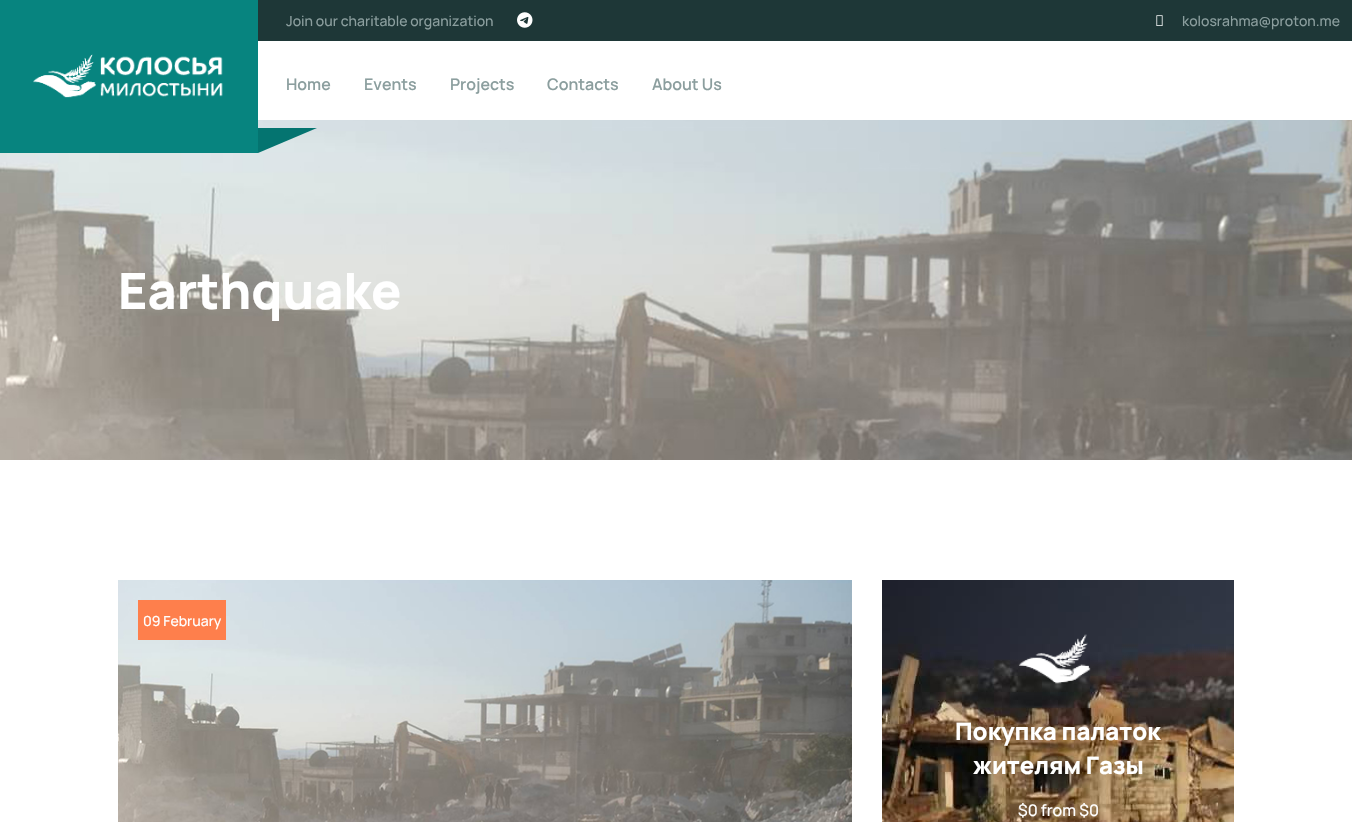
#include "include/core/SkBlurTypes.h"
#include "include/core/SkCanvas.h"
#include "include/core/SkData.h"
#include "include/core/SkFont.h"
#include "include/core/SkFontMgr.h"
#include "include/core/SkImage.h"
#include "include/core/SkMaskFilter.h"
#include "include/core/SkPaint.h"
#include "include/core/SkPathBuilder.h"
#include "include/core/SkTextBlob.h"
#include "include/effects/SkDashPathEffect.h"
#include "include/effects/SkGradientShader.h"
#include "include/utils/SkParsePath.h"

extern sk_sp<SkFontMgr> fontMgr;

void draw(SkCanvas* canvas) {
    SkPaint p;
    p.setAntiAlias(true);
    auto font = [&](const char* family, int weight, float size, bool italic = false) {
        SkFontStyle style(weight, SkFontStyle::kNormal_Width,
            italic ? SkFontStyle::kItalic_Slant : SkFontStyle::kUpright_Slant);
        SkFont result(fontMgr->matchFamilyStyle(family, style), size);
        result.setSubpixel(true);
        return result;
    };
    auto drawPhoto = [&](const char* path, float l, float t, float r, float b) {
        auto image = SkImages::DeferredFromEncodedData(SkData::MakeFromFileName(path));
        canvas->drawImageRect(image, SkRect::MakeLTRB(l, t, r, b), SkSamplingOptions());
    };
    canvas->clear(0xFFFFFFFF);
    drawPhoto("media/4.png", 0, 120, 1352, 460);
    p.setColor(0xFF07847F);
    canvas->drawRect(SkRect::MakeLTRB(0, 0, 258, 153), p);
    drawPhoto("media/1.png", 33, 54, 223, 98);
    p.setColor(0xFF047470);
    canvas->drawPath(SkPathBuilder().moveTo(258, 128).lineTo(258, 153).lineTo(317, 128).close().detach(), p);
    p.setColor(0xFF1E3737);
    canvas->drawRect(SkRect::MakeLTRB(258, 0, 1352, 41), p);
    auto font1 = font("Manrope", 500, 14);
    p.setColor(0xFF8B9E9E);
    canvas->drawString("Join our charitable organization", 286, 26, font1, p);
    drawPhoto("media/2.png", 517, 12, 533, 28);
    drawPhoto("media/3.png", 1156, 15, 1163, 26);
    canvas->drawString("kolosrahma@proton.me", 1182, 26, font1, p);
    auto font2 = font("Manrope", 600, 16);
    {
        const struct { const char* s; float x, y; } items[] = {
            {"Home", 286, 90},
            {"Events", 364, 90},
            {"Projects", 450, 90},
            {"Contacts", 547, 90},
            {"About Us", 652, 90},
        };
        for (auto [s, x, y] : items) {
            canvas->drawString(s, x, y, font2, p);
        }
    }
    auto font3 = font("Manrope", 800, 50);
    p.setColor(0xFFFFFFFF);
    canvas->drawString("Earthquake", 118, 309, font3, p);
    drawPhoto("media/5.png", 118, 580, 852, 822);
    p.setColor(0xFFFE7F4C);
    canvas->drawRect(SkRect::MakeLTRB(138, 600, 226, 640), p);
    p.setColor(0xFFFFFFFF);
    canvas->drawString("09 February", 143, 626, font1, p);
    drawPhoto("media/6.png", 882, 580, 1234, 822);
    drawPhoto("media/7.png", 1018, 634, 1091, 684);
    auto font4 = font("Manrope", 800, 24);
    canvas->drawString("Покупка палаток", 955, 740, font4, p);
    canvas->drawString("жителям Газы", 973, 774, font4, p);
    auto font5 = font("Manrope", 500, 16);
    canvas->drawString("$0 from $0", 1018, 816, font5, p);
}
